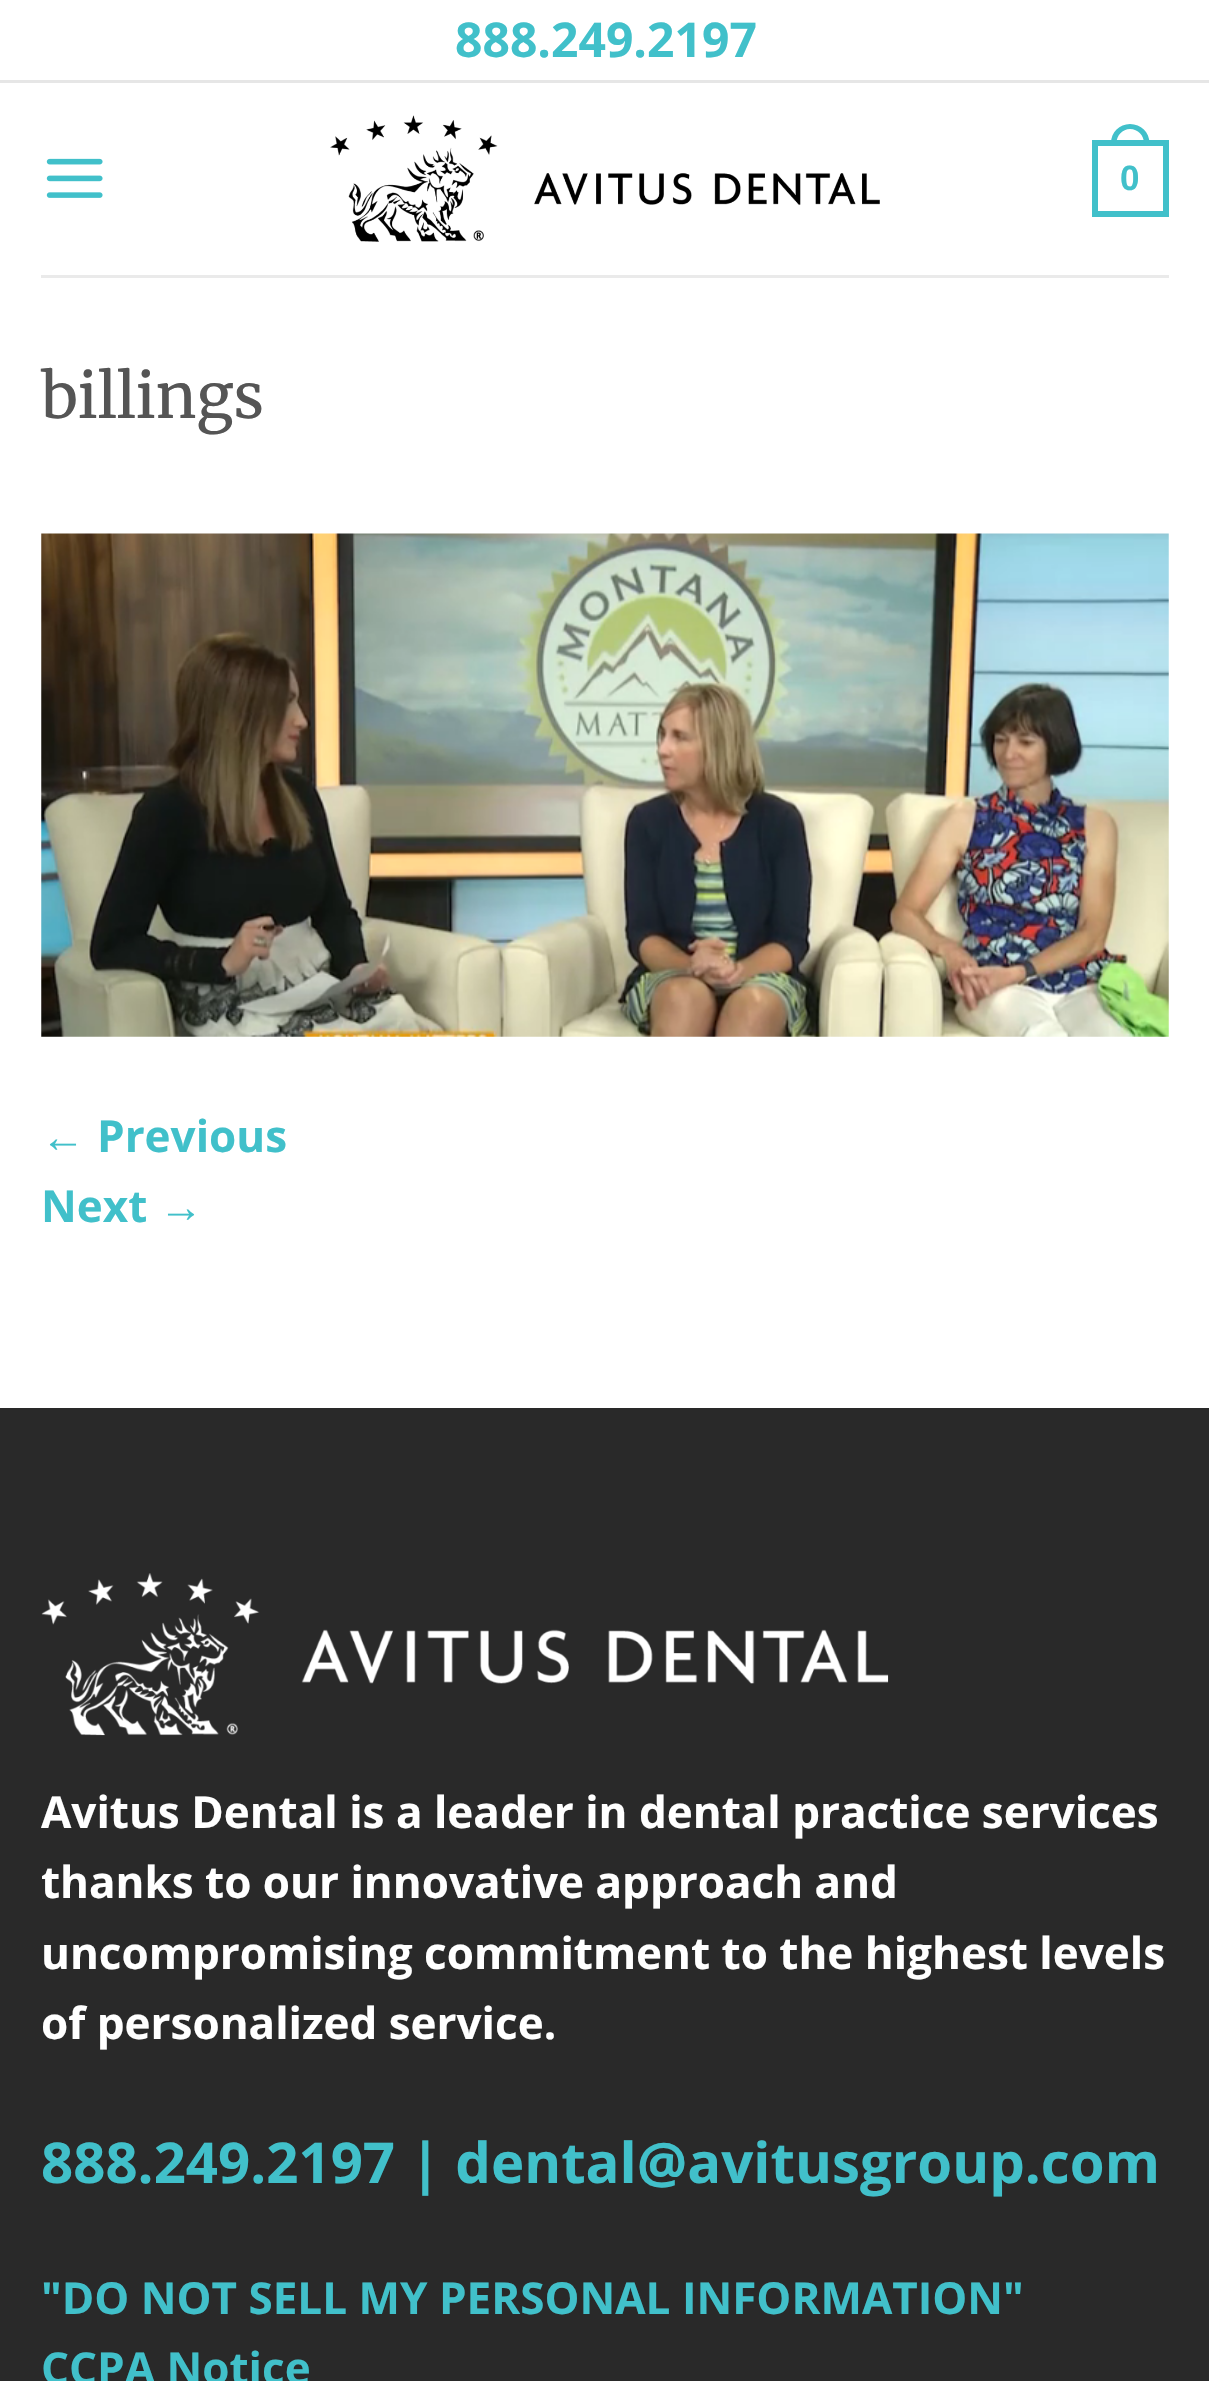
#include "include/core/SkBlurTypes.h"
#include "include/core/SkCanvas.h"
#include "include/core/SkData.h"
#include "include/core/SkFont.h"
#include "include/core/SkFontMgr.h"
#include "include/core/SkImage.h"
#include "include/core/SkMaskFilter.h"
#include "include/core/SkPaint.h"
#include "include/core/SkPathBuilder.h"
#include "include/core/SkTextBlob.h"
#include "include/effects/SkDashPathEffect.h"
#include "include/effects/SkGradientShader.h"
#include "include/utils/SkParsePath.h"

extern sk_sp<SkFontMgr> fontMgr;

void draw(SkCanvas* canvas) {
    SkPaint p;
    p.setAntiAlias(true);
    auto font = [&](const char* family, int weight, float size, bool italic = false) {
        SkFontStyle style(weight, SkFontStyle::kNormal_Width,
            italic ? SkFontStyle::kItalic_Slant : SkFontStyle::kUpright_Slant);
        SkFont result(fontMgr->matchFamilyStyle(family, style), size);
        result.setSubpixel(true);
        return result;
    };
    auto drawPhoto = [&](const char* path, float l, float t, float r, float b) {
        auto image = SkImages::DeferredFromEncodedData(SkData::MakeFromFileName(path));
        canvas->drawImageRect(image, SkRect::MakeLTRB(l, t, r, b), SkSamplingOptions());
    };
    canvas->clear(0xFFFFFFFF);
    p.setColor(0xFFE6E6E6);
    canvas->drawRect(SkRect::MakeLTRB(0, 80, 1209, 83), p);
    auto font1 = font("Open Sans", 700, 48);
    p.setColor(0xFF41C0CA);
    canvas->drawString("888.249.2197", 455, 57, font1, p);
    drawPhoto("media/1.png", 46, 158, 103, 198);
    drawPhoto("media/2.png", 330, 115, 880, 242);
    p.setStyle(SkPaint::kStroke_Style);
    p.setStrokeWidth(6);
    canvas->drawRect(SkRect::MakeLTRB(1095, 143, 1166, 214), p);
    p.setStyle(SkPaint::kFill_Style);
    canvas->drawPath(SkPathBuilder(SkPathFillType::kEvenOdd).moveTo(1130, 124).cubicTo(1141, 124, 1149.5f, 132.5f, 1149.5f, 143).lineTo(1149.5f, 146).lineTo(1111, 146).lineTo(1111, 143).cubicTo(1111, 132.5f, 1119.5f, 124, 1130, 124).close().moveTo(1130, 129).cubicTo(1138, 129, 1144, 135.5f, 1144, 143).lineTo(1144, 146).lineTo(1116.5f, 146).lineTo(1116.5f, 143).cubicTo(1116.5f, 135.5f, 1122.5f, 129, 1130, 129).close().detach(), p);
    auto font2 = font("Liberation Sans", 700, 35);
    canvas->drawString("0", 1120, 190, font2, p);
    p.setColor(0xFFEAEAEA);
    canvas->drawRect(SkRect::MakeLTRB(41, 275, 1169, 278), p);
    auto font3 = font("Merriweather", 400, 61.5f);
    p.setColor(0xFF555555);
    canvas->drawString("billings", 41, 418, font3, p);
    drawPhoto("media/3.png", 41, 533, 1169, 1037);
    auto font4 = font("Liberation Sans", 400, 44);
    p.setColor(0xFF41C0CA);
    canvas->drawString("←", 41, 1152, font4, p);
    auto font5 = font("Open Sans", 700, 44);
    canvas->drawString("Previous", 97, 1152, font5, p);
    canvas->drawString("Next", 41, 1222, font5, p);
    canvas->drawString("→", 159, 1222, font4, p);
    p.setColor(0xFF292929);
    canvas->drawRect(SkRect::MakeLTRB(0, 1408, 1209, 2381), p);
    drawPhoto("media/4.png", 41, 1573, 889, 1736);
    p.setColor(0xFFFFFFFF);
    {
        const struct { const char* s; float x, y; } items[] = {
            {"Avitus Dental is a leader in dental practice services", 41, 1828},
            {"thanks to our innovative approach and", 41, 1898},
            {"uncompromising commitment to the highest levels", 41, 1969},
            {"of personalized service.", 41, 2039},
        };
        for (auto [s, x, y] : items) {
            canvas->drawString(s, x, y, font5, p);
        }
    }
    auto font6 = font("Open Sans", 700, 56.3f);
    p.setColor(0xFF41C0CA);
    canvas->drawString("888.249.2197 | dental@avitusgroup.com", 41, 2183, font6, p);
    canvas->drawString("\"DO NOT SELL MY PERSONAL INFORMATION\"", 41, 2314, font5, p);
    canvas->drawString("CCPA Notice", 41, 2384, font5, p);
}
